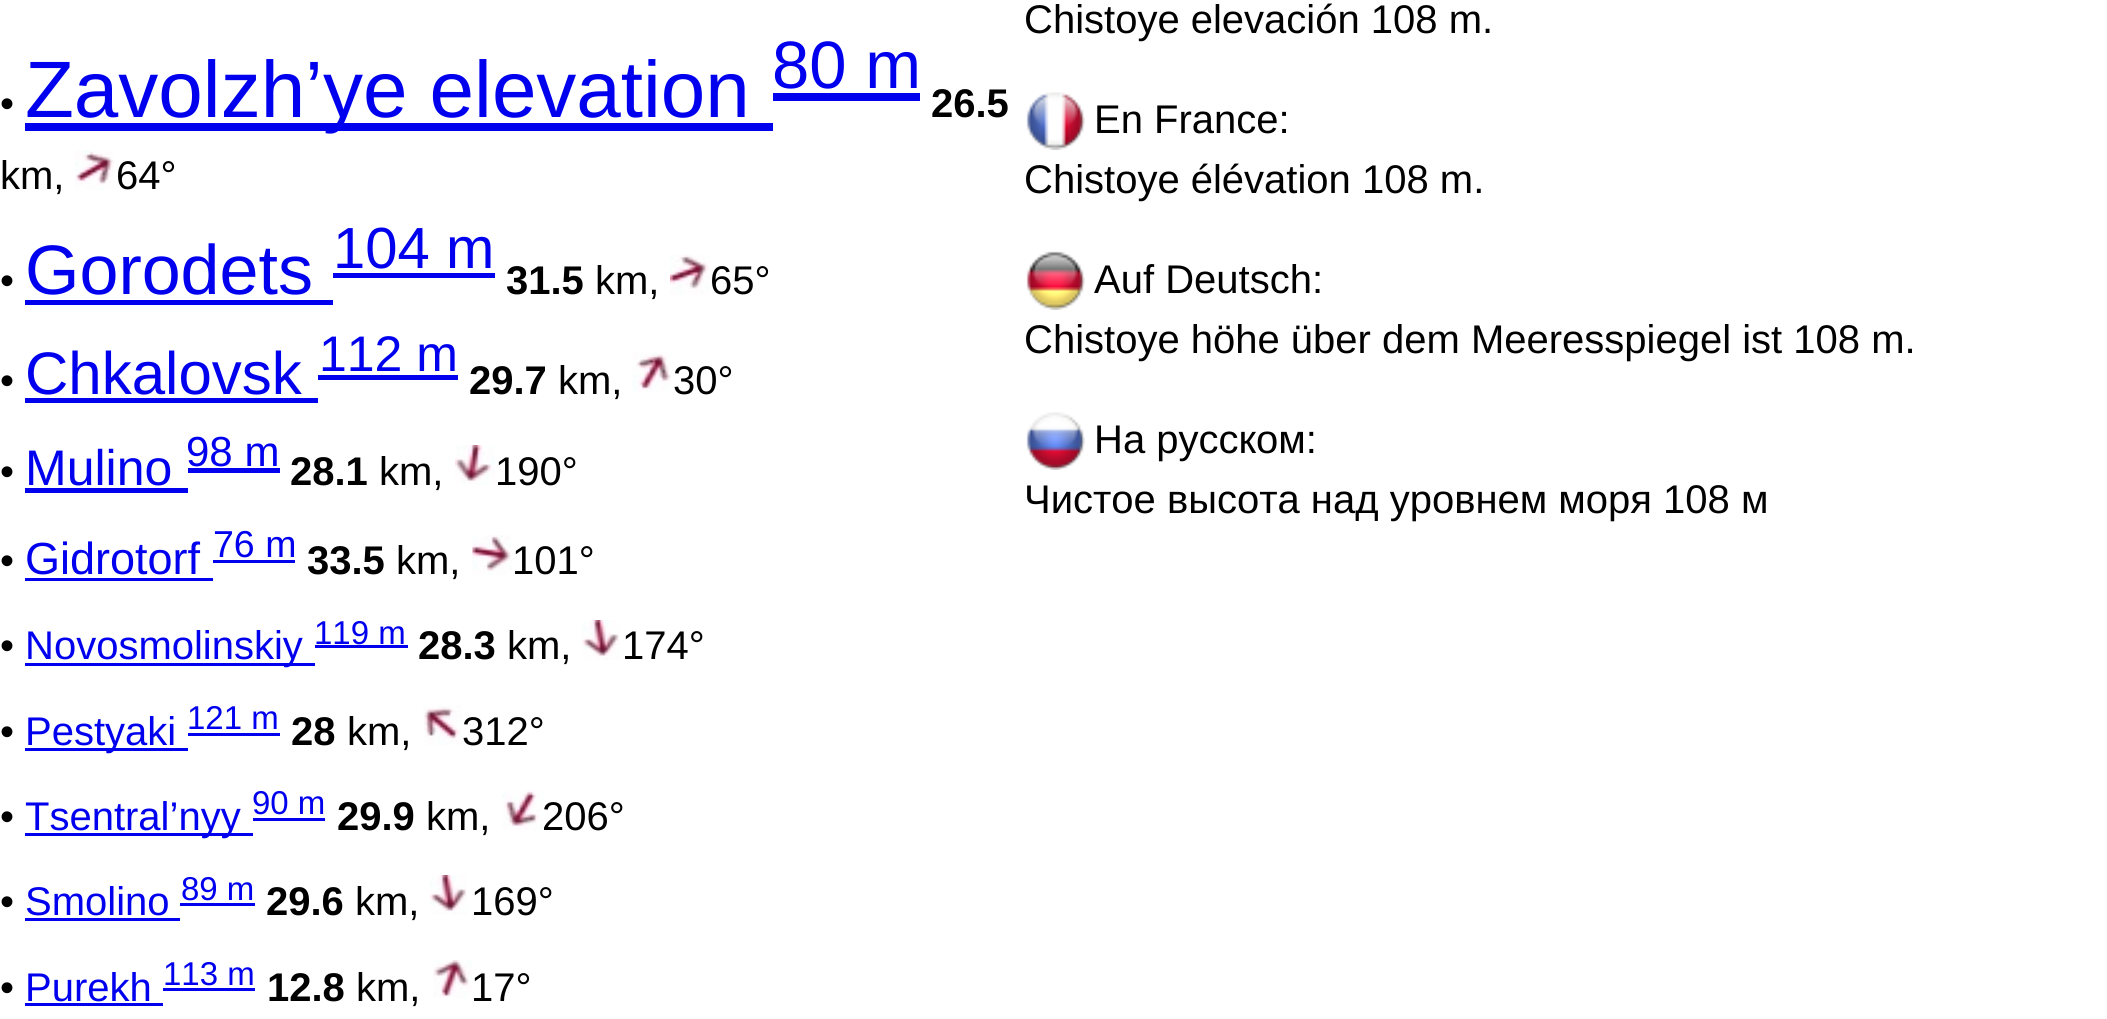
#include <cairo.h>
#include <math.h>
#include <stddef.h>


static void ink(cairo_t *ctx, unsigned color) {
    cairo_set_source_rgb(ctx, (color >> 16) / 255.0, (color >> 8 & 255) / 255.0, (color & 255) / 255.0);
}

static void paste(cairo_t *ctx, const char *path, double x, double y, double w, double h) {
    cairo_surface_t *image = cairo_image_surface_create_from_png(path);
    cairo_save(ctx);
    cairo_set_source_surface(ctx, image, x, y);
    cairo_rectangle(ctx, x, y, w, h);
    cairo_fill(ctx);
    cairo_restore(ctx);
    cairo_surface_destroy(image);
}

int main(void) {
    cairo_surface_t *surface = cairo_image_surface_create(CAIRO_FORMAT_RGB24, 2107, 1019);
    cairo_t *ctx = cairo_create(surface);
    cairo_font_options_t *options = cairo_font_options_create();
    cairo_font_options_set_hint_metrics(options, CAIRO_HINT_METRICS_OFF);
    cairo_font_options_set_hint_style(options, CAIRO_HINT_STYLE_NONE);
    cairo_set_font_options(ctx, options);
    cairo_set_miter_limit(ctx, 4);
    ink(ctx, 0xFFFFFF);
    cairo_paint(ctx);
    cairo_select_font_face(ctx, "Liberation Sans", CAIRO_FONT_SLANT_NORMAL, CAIRO_FONT_WEIGHT_NORMAL);
    cairo_set_font_size(ctx, 40);
    ink(ctx, 0x000000);
    cairo_move_to(ctx, 0, 117);
    cairo_show_text(ctx, "•");
    ink(ctx, 0x0000EE);
    cairo_rectangle(ctx, 25, 123, 748, 8);
    cairo_fill(ctx);
    cairo_set_font_size(ctx, 80);
    cairo_move_to(ctx, 25, 117);
    cairo_show_text(ctx, "Zavolzh’ye elevation");
    cairo_rectangle(ctx, 773, 93, 147, 8);
    cairo_fill(ctx);
    cairo_set_font_size(ctx, 67);
    cairo_move_to(ctx, 772, 88);
    cairo_show_text(ctx, "80 m");
    cairo_select_font_face(ctx, "Liberation Sans", CAIRO_FONT_SLANT_NORMAL, CAIRO_FONT_WEIGHT_BOLD);
    cairo_set_font_size(ctx, 40);
    ink(ctx, 0x000000);
    cairo_move_to(ctx, 931, 117);
    cairo_show_text(ctx, "26.5");
    cairo_select_font_face(ctx, "Liberation Sans", CAIRO_FONT_SLANT_NORMAL, CAIRO_FONT_WEIGHT_NORMAL);
    cairo_move_to(ctx, 0, 189);
    cairo_show_text(ctx, "km,");
    paste(ctx, "media/1.png", 75, 150, 39, 40);
    cairo_move_to(ctx, 116, 189);
    cairo_show_text(ctx, "64°");
    cairo_move_to(ctx, 0, 294);
    cairo_show_text(ctx, "•");
    cairo_set_font_size(ctx, 70);
    ink(ctx, 0x0000EE);
    cairo_move_to(ctx, 25, 294);
    cairo_show_text(ctx, "Gorodets");
    cairo_rectangle(ctx, 25, 300, 308, 5);
    cairo_fill(ctx);
    cairo_rectangle(ctx, 333, 273, 162, 5);
    cairo_fill(ctx);
    cairo_set_font_size(ctx, 58);
    cairo_move_to(ctx, 333, 268);
    cairo_show_text(ctx, "104 m");
    cairo_select_font_face(ctx, "Liberation Sans", CAIRO_FONT_SLANT_NORMAL, CAIRO_FONT_WEIGHT_BOLD);
    cairo_set_font_size(ctx, 40);
    ink(ctx, 0x000000);
    cairo_move_to(ctx, 506, 294);
    cairo_show_text(ctx, "31.5");
    cairo_select_font_face(ctx, "Liberation Sans", CAIRO_FONT_SLANT_NORMAL, CAIRO_FONT_WEIGHT_NORMAL);
    cairo_move_to(ctx, 595, 294);
    cairo_show_text(ctx, "km,");
    paste(ctx, "media/2.png", 670, 255, 40, 40);
    cairo_move_to(ctx, 710, 294);
    cairo_show_text(ctx, "65°");
    cairo_move_to(ctx, 0, 394);
    cairo_show_text(ctx, "•");
    cairo_set_font_size(ctx, 60);
    ink(ctx, 0x0000EE);
    cairo_move_to(ctx, 25, 394);
    cairo_show_text(ctx, "Chkalovsk");
    cairo_rectangle(ctx, 25, 398, 293, 5);
    cairo_fill(ctx);
    cairo_rectangle(ctx, 318, 375, 140, 5);
    cairo_fill(ctx);
    cairo_set_font_size(ctx, 50);
    cairo_move_to(ctx, 319, 371);
    cairo_show_text(ctx, "112 m");
    cairo_select_font_face(ctx, "Liberation Sans", CAIRO_FONT_SLANT_NORMAL, CAIRO_FONT_WEIGHT_BOLD);
    cairo_set_font_size(ctx, 40);
    ink(ctx, 0x000000);
    cairo_move_to(ctx, 469, 394);
    cairo_show_text(ctx, "29.7");
    cairo_select_font_face(ctx, "Liberation Sans", CAIRO_FONT_SLANT_NORMAL, CAIRO_FONT_WEIGHT_NORMAL);
    cairo_move_to(ctx, 558, 394);
    cairo_show_text(ctx, "km,");
    paste(ctx, "media/3.png", 632, 352, 40, 40);
    cairo_move_to(ctx, 673, 394);
    cairo_show_text(ctx, "30°");
    cairo_move_to(ctx, 0, 485);
    cairo_show_text(ctx, "•");
    cairo_set_font_size(ctx, 50);
    ink(ctx, 0x0000EE);
    cairo_move_to(ctx, 25, 485);
    cairo_show_text(ctx, "Mulino");
    cairo_rectangle(ctx, 25, 488, 163, 5);
    cairo_fill(ctx);
    cairo_rectangle(ctx, 188, 468, 92, 5);
    cairo_fill(ctx);
    cairo_set_font_size(ctx, 42);
    cairo_move_to(ctx, 186, 466);
    cairo_show_text(ctx, "98 m");
    cairo_select_font_face(ctx, "Liberation Sans", CAIRO_FONT_SLANT_NORMAL, CAIRO_FONT_WEIGHT_BOLD);
    cairo_set_font_size(ctx, 40);
    ink(ctx, 0x000000);
    cairo_move_to(ctx, 290, 485);
    cairo_show_text(ctx, "28.1");
    cairo_select_font_face(ctx, "Liberation Sans", CAIRO_FONT_SLANT_NORMAL, CAIRO_FONT_WEIGHT_NORMAL);
    cairo_move_to(ctx, 379, 485);
    cairo_show_text(ctx, "km,");
    paste(ctx, "media/4.png", 455, 445, 40, 40);
    cairo_move_to(ctx, 495, 485);
    cairo_show_text(ctx, "190°");
    cairo_move_to(ctx, 0, 574);
    cairo_show_text(ctx, "•");
    cairo_set_font_size(ctx, 45);
    ink(ctx, 0x0000EE);
    cairo_move_to(ctx, 25, 574);
    cairo_show_text(ctx, "Gidrotorf");
    cairo_rectangle(ctx, 25, 578, 188, 3);
    cairo_fill(ctx);
    cairo_rectangle(ctx, 213, 560, 82, 3);
    cairo_fill(ctx);
    cairo_set_font_size(ctx, 37.5);
    cairo_move_to(ctx, 213, 557);
    cairo_show_text(ctx, "76 m");
    cairo_select_font_face(ctx, "Liberation Sans", CAIRO_FONT_SLANT_NORMAL, CAIRO_FONT_WEIGHT_BOLD);
    cairo_set_font_size(ctx, 40);
    ink(ctx, 0x000000);
    cairo_move_to(ctx, 307, 574);
    cairo_show_text(ctx, "33.5");
    cairo_select_font_face(ctx, "Liberation Sans", CAIRO_FONT_SLANT_NORMAL, CAIRO_FONT_WEIGHT_NORMAL);
    cairo_move_to(ctx, 396, 574);
    cairo_show_text(ctx, "km,");
    paste(ctx, "media/5.png", 472, 535, 40, 40);
    cairo_move_to(ctx, 512, 574);
    cairo_show_text(ctx, "101°");
    cairo_move_to(ctx, 0, 659);
    cairo_show_text(ctx, "•");
    ink(ctx, 0x0000EE);
    cairo_rectangle(ctx, 25, 663, 290, 3);
    cairo_fill(ctx);
    cairo_move_to(ctx, 25, 659);
    cairo_show_text(ctx, "Novosmolinskiy");
    cairo_rectangle(ctx, 315, 645, 93, 3);
    cairo_fill(ctx);
    cairo_set_font_size(ctx, 33);
    cairo_move_to(ctx, 314, 644);
    cairo_show_text(ctx, "119 m");
    cairo_select_font_face(ctx, "Liberation Sans", CAIRO_FONT_SLANT_NORMAL, CAIRO_FONT_WEIGHT_BOLD);
    cairo_set_font_size(ctx, 40);
    ink(ctx, 0x000000);
    cairo_move_to(ctx, 418, 659);
    cairo_show_text(ctx, "28.3");
    cairo_select_font_face(ctx, "Liberation Sans", CAIRO_FONT_SLANT_NORMAL, CAIRO_FONT_WEIGHT_NORMAL);
    cairo_move_to(ctx, 507, 659);
    cairo_show_text(ctx, "km,");
    paste(ctx, "media/6.png", 582, 620, 38, 40);
    cairo_move_to(ctx, 622, 659);
    cairo_show_text(ctx, "174°");
    cairo_move_to(ctx, 0, 745);
    cairo_show_text(ctx, "•");
    ink(ctx, 0x0000EE);
    cairo_rectangle(ctx, 25, 748, 163, 3);
    cairo_fill(ctx);
    cairo_move_to(ctx, 25, 745);
    cairo_show_text(ctx, "Pestyaki");
    cairo_rectangle(ctx, 188, 733, 92, 3);
    cairo_fill(ctx);
    cairo_set_font_size(ctx, 33);
    cairo_move_to(ctx, 187, 729);
    cairo_show_text(ctx, "121 m");
    cairo_select_font_face(ctx, "Liberation Sans", CAIRO_FONT_SLANT_NORMAL, CAIRO_FONT_WEIGHT_BOLD);
    cairo_set_font_size(ctx, 40);
    ink(ctx, 0x000000);
    cairo_move_to(ctx, 291, 745);
    cairo_show_text(ctx, "28");
    cairo_select_font_face(ctx, "Liberation Sans", CAIRO_FONT_SLANT_NORMAL, CAIRO_FONT_WEIGHT_NORMAL);
    cairo_move_to(ctx, 347, 745);
    cairo_show_text(ctx, "km,");
    paste(ctx, "media/7.png", 423, 705, 39, 40);
    cairo_move_to(ctx, 462, 745);
    cairo_show_text(ctx, "312°");
    cairo_move_to(ctx, 0, 830);
    cairo_show_text(ctx, "•");
    ink(ctx, 0x0000EE);
    cairo_rectangle(ctx, 25, 833, 228, 3);
    cairo_fill(ctx);
    cairo_move_to(ctx, 25, 830);
    cairo_show_text(ctx, "Tsentral’nyy");
    cairo_rectangle(ctx, 253, 818, 72, 3);
    cairo_fill(ctx);
    cairo_set_font_size(ctx, 33);
    cairo_move_to(ctx, 252, 814);
    cairo_show_text(ctx, "90 m");
    cairo_select_font_face(ctx, "Liberation Sans", CAIRO_FONT_SLANT_NORMAL, CAIRO_FONT_WEIGHT_BOLD);
    cairo_set_font_size(ctx, 40);
    ink(ctx, 0x000000);
    cairo_move_to(ctx, 337, 830);
    cairo_show_text(ctx, "29.9");
    cairo_select_font_face(ctx, "Liberation Sans", CAIRO_FONT_SLANT_NORMAL, CAIRO_FONT_WEIGHT_NORMAL);
    cairo_move_to(ctx, 426, 830);
    cairo_show_text(ctx, "km,");
    paste(ctx, "media/8.png", 502, 790, 41, 40);
    cairo_move_to(ctx, 542, 830);
    cairo_show_text(ctx, "206°");
    cairo_move_to(ctx, 0, 915);
    cairo_show_text(ctx, "•");
    ink(ctx, 0x0000EE);
    cairo_move_to(ctx, 25, 915);
    cairo_show_text(ctx, "Smolino");
    cairo_rectangle(ctx, 25, 918, 155, 3);
    cairo_fill(ctx);
    cairo_rectangle(ctx, 180, 903, 75, 3);
    cairo_fill(ctx);
    cairo_set_font_size(ctx, 33);
    cairo_move_to(ctx, 181, 900);
    cairo_show_text(ctx, "89 m");
    cairo_select_font_face(ctx, "Liberation Sans", CAIRO_FONT_SLANT_NORMAL, CAIRO_FONT_WEIGHT_BOLD);
    cairo_set_font_size(ctx, 40);
    ink(ctx, 0x000000);
    cairo_move_to(ctx, 266, 915);
    cairo_show_text(ctx, "29.6");
    cairo_select_font_face(ctx, "Liberation Sans", CAIRO_FONT_SLANT_NORMAL, CAIRO_FONT_WEIGHT_NORMAL);
    cairo_move_to(ctx, 355, 915);
    cairo_show_text(ctx, "km,");
    paste(ctx, "media/9.png", 430, 875, 37, 40);
    cairo_move_to(ctx, 471, 915);
    cairo_show_text(ctx, "169°");
    cairo_move_to(ctx, 0, 1001);
    cairo_show_text(ctx, "•");
    ink(ctx, 0x0000EE);
    cairo_move_to(ctx, 25, 1001);
    cairo_show_text(ctx, "Purekh");
    cairo_rectangle(ctx, 25, 1003, 138, 3);
    cairo_fill(ctx);
    cairo_rectangle(ctx, 163, 988, 92, 3);
    cairo_fill(ctx);
    cairo_set_font_size(ctx, 33);
    cairo_move_to(ctx, 163, 985);
    cairo_show_text(ctx, "113 m");
    cairo_select_font_face(ctx, "Liberation Sans", CAIRO_FONT_SLANT_NORMAL, CAIRO_FONT_WEIGHT_BOLD);
    cairo_set_font_size(ctx, 40);
    ink(ctx, 0x000000);
    cairo_move_to(ctx, 267, 1001);
    cairo_show_text(ctx, "12.8");
    cairo_select_font_face(ctx, "Liberation Sans", CAIRO_FONT_SLANT_NORMAL, CAIRO_FONT_WEIGHT_NORMAL);
    cairo_move_to(ctx, 356, 1001);
    cairo_show_text(ctx, "km,");
    paste(ctx, "media/10.png", 433, 960, 39, 38);
    cairo_move_to(ctx, 471, 1001);
    cairo_show_text(ctx, "17°");
    cairo_move_to(ctx, 1024, 33);
    cairo_show_text(ctx, "Chistoye elevación 108 m.");
    paste(ctx, "media/11.png", 1026, 92, 59, 58);
    cairo_move_to(ctx, 1094, 133);
    cairo_show_text(ctx, "En France:");
    cairo_move_to(ctx, 1024, 193);
    cairo_show_text(ctx, "Chistoye élévation 108 m.");
    paste(ctx, "media/12.png", 1026, 251, 59, 59);
    cairo_move_to(ctx, 1094, 293);
    cairo_show_text(ctx, "Auf Deutsch:");
    cairo_move_to(ctx, 1024, 353);
    cairo_show_text(ctx, "Chistoye höhe über dem Meeresspiegel ist 108 m.");
    paste(ctx, "media/13.png", 1026, 412, 59, 58);
    cairo_move_to(ctx, 1094, 453);
    cairo_show_text(ctx, "На русском:");
    cairo_move_to(ctx, 1024, 513);
    cairo_show_text(ctx, "Чистое высота над уровнем моря 108 м");
    cairo_surface_write_to_png(surface, "image.png");
    cairo_font_options_destroy(options);
    cairo_destroy(ctx);
    cairo_surface_destroy(surface);
    return 0;
}
